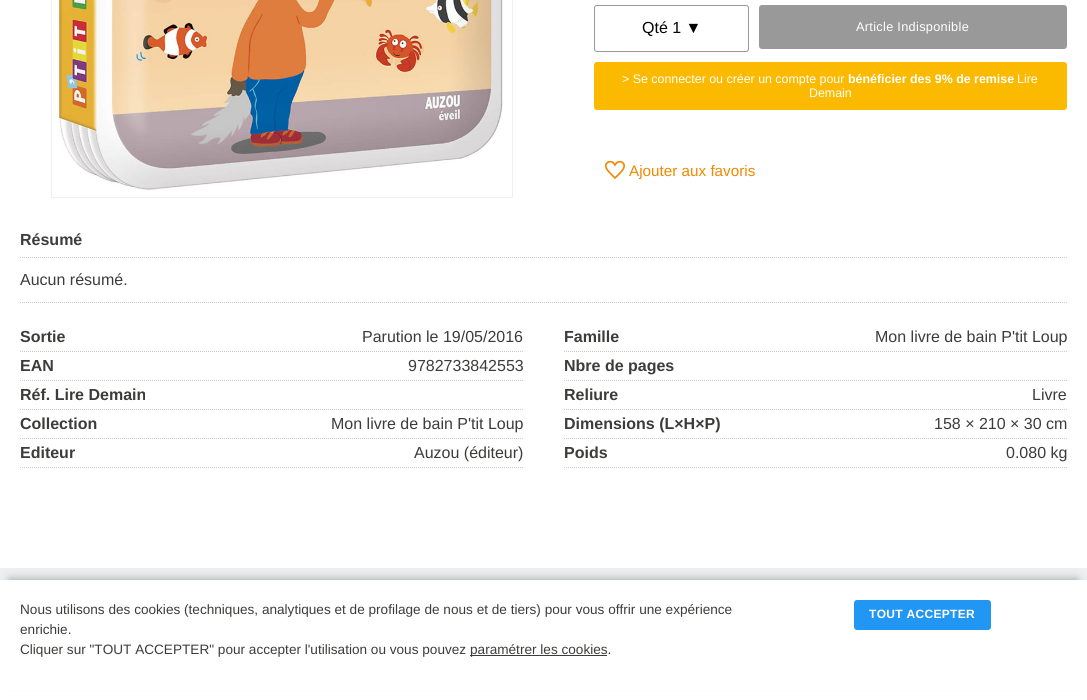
#include <cairo.h>
#include <math.h>
#include <stddef.h>

typedef struct { double x, y; const char *s; } line_t;

static void ink(cairo_t *ctx, unsigned color) {
    cairo_set_source_rgb(ctx, (color >> 16) / 255.0, (color >> 8 & 255) / 255.0, (color & 255) / 255.0);
}

static void write_spaced(cairo_t *ctx, double x, double y, const char *s, double letter, double word) {
    cairo_move_to(ctx, x, y);
    while (*s) {
        char ch[5] = {0};
        int n = 0;
        do ch[n++] = *s++; while ((*s & 0xC0) == 0x80);
        cairo_show_text(ctx, ch);
        cairo_rel_move_to(ctx, letter + word * (*ch == ' '), 0);
    }
}

static void round_path(cairo_t *ctx, double x, double y, double w, double h, double r) {
    cairo_new_sub_path(ctx);
    cairo_arc(ctx, x + w - r, y + h - r, r, 0, M_PI / 2);
    cairo_arc(ctx, x + r, y + h - r, r, M_PI / 2, M_PI);
    cairo_arc(ctx, x + r, y + r, r, M_PI, 1.5 * M_PI);
    cairo_arc(ctx, x + w - r, y + r, r, 1.5 * M_PI, 2 * M_PI);
    cairo_close_path(ctx);
}

static void blur_box(cairo_t *ctx, double x, double y, double w, double h, double r, double blur, double alpha) {
    cairo_push_group_with_content(ctx, CAIRO_CONTENT_ALPHA);
    cairo_set_operator(ctx, CAIRO_OPERATOR_SOURCE);
    for (int i = 15; i >= -15 && fmin(w, h) + blur * i / 3 > 0; i -= 2) {
        double e = blur * i / 6;
        cairo_set_source_rgba(ctx, 0, 0, 0, alpha * erfc((i - 1) / 8.5) / 2);
        round_path(ctx, x - e, y - e, w + 2 * e, h + 2 * e, fmax(0, fmin(r + e + blur * .6, fmin(w, h) / 2 + e)));
        cairo_fill(ctx);
    }
    cairo_pattern_t *soft = cairo_pop_group(ctx);
    cairo_mask(ctx, soft);
    cairo_pattern_destroy(soft);
}

static void paste(cairo_t *ctx, const char *path, double x, double y, double w, double h) {
    cairo_surface_t *image = cairo_image_surface_create_from_png(path);
    cairo_save(ctx);
    cairo_set_source_surface(ctx, image, x, y);
    cairo_rectangle(ctx, x, y, w, h);
    cairo_fill(ctx);
    cairo_restore(ctx);
    cairo_surface_destroy(image);
}

int main(void) {
    cairo_surface_t *surface = cairo_image_surface_create(CAIRO_FORMAT_RGB24, 1087, 700);
    cairo_t *ctx = cairo_create(surface);
    cairo_font_options_t *options = cairo_font_options_create();
    cairo_font_options_set_hint_metrics(options, CAIRO_HINT_METRICS_OFF);
    cairo_font_options_set_hint_style(options, CAIRO_HINT_STYLE_NONE);
    cairo_set_font_options(ctx, options);
    cairo_set_miter_limit(ctx, 4);
    ink(ctx, 0xFFFFFF);
    cairo_paint(ctx);
    cairo_rectangle(ctx, 51.5, -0.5, 461, 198);
    ink(ctx, 0xEFEFEF);
    cairo_set_line_width(ctx, 1);
    cairo_stroke(ctx);
    paste(ctx, "media/1.png", 56, 0, 447, 190);
    round_path(ctx, 594.5, 5.5, 154, 46, 2.5);
    ink(ctx, 0x999999);
    cairo_stroke(ctx);
    cairo_select_font_face(ctx, "Liberation Sans", CAIRO_FONT_SLANT_NORMAL, CAIRO_FONT_WEIGHT_NORMAL);
    cairo_set_font_size(ctx, 16);
    ink(ctx, 0x000000);
    cairo_move_to(ctx, 642, 33);
    cairo_show_text(ctx, "Qté 1 ▼");
    ink(ctx, 0x999999);
    round_path(ctx, 759, 5, 308, 44, 3);
    cairo_fill(ctx);
    cairo_set_font_size(ctx, 12.75);
    ink(ctx, 0xFFFFFF);
    write_spaced(ctx, 856, 31, "Article Indisponible", 0.3, 0);
    ink(ctx, 0xFBB900);
    round_path(ctx, 594, 62, 473, 48, 3);
    cairo_fill(ctx);
    cairo_set_font_size(ctx, 12.4);
    ink(ctx, 0xFFFFFF);
    cairo_move_to(ctx, 622, 83);
    cairo_show_text(ctx, "> Se connecter ou créer un compte pour");
    cairo_select_font_face(ctx, "Liberation Sans", CAIRO_FONT_SLANT_NORMAL, CAIRO_FONT_WEIGHT_BOLD);
    cairo_move_to(ctx, 848, 83);
    cairo_show_text(ctx, "bénéficier des 9% de remise");
    cairo_select_font_face(ctx, "Liberation Sans", CAIRO_FONT_SLANT_NORMAL, CAIRO_FONT_WEIGHT_NORMAL);
    cairo_move_to(ctx, 1017, 83);
    cairo_show_text(ctx, "Lire");
    cairo_move_to(ctx, 809, 97);
    cairo_show_text(ctx, "Demain");
    paste(ctx, "media/2.png", 605, 160, 20, 19);
    cairo_set_font_size(ctx, 15.25);
    ink(ctx, 0xF18800);
    cairo_move_to(ctx, 629, 176);
    cairo_show_text(ctx, "Ajouter aux favoris");
    cairo_new_path(ctx);
    cairo_move_to(ctx, 20, 302.5);
    cairo_line_to(ctx, 1067, 302.5);
    ink(ctx, 0xCCCCCC);
    cairo_set_dash(ctx, (double[]){1, 1}, 2, 0);
    cairo_stroke(ctx);
    cairo_new_path(ctx);
    cairo_move_to(ctx, 20, 257.5);
    cairo_line_to(ctx, 1067, 257.5);
    cairo_stroke(ctx);
    cairo_select_font_face(ctx, "Liberation Sans", CAIRO_FONT_SLANT_NORMAL, CAIRO_FONT_WEIGHT_BOLD);
    cairo_set_font_size(ctx, 16);
    ink(ctx, 0x3C3C3B);
    cairo_move_to(ctx, 20, 245);
    cairo_show_text(ctx, "Résumé");
    cairo_select_font_face(ctx, "Liberation Sans", CAIRO_FONT_SLANT_NORMAL, CAIRO_FONT_WEIGHT_NORMAL);
    cairo_move_to(ctx, 20, 285);
    cairo_show_text(ctx, "Aucun résumé.");
    cairo_new_path(ctx);
    cairo_move_to(ctx, 20, 351.5);
    cairo_line_to(ctx, 524, 351.5);
    ink(ctx, 0xCCCCCC);
    cairo_stroke(ctx);
    cairo_select_font_face(ctx, "Liberation Sans", CAIRO_FONT_SLANT_NORMAL, CAIRO_FONT_WEIGHT_BOLD);
    ink(ctx, 0x3C3C3B);
    cairo_move_to(ctx, 20, 342);
    cairo_show_text(ctx, "Sortie");
    cairo_select_font_face(ctx, "Liberation Sans", CAIRO_FONT_SLANT_NORMAL, CAIRO_FONT_WEIGHT_NORMAL);
    cairo_move_to(ctx, 362, 342);
    cairo_show_text(ctx, "Parution le 19/05/2016");
    cairo_new_path(ctx);
    cairo_move_to(ctx, 20, 380.5);
    cairo_line_to(ctx, 524, 380.5);
    ink(ctx, 0xCCCCCC);
    cairo_stroke(ctx);
    cairo_select_font_face(ctx, "Liberation Sans", CAIRO_FONT_SLANT_NORMAL, CAIRO_FONT_WEIGHT_BOLD);
    ink(ctx, 0x3C3C3B);
    cairo_move_to(ctx, 20, 371);
    cairo_show_text(ctx, "EAN");
    cairo_select_font_face(ctx, "Liberation Sans", CAIRO_FONT_SLANT_NORMAL, CAIRO_FONT_WEIGHT_NORMAL);
    cairo_move_to(ctx, 408, 371);
    cairo_show_text(ctx, "9782733842553");
    cairo_new_path(ctx);
    cairo_move_to(ctx, 20, 409.5);
    cairo_line_to(ctx, 524, 409.5);
    ink(ctx, 0xCCCCCC);
    cairo_stroke(ctx);
    cairo_select_font_face(ctx, "Liberation Sans", CAIRO_FONT_SLANT_NORMAL, CAIRO_FONT_WEIGHT_BOLD);
    ink(ctx, 0x3C3C3B);
    cairo_move_to(ctx, 20, 400);
    cairo_show_text(ctx, "Réf. Lire Demain");
    cairo_new_path(ctx);
    cairo_move_to(ctx, 20, 438.5);
    cairo_line_to(ctx, 524, 438.5);
    ink(ctx, 0xCCCCCC);
    cairo_stroke(ctx);
    ink(ctx, 0x3C3C3B);
    cairo_move_to(ctx, 20, 429);
    cairo_show_text(ctx, "Collection");
    cairo_select_font_face(ctx, "Liberation Sans", CAIRO_FONT_SLANT_NORMAL, CAIRO_FONT_WEIGHT_NORMAL);
    cairo_move_to(ctx, 331, 429);
    cairo_show_text(ctx, "Mon livre de bain P'tit Loup");
    cairo_new_path(ctx);
    cairo_move_to(ctx, 20, 467.5);
    cairo_line_to(ctx, 524, 467.5);
    ink(ctx, 0xCCCCCC);
    cairo_stroke(ctx);
    cairo_select_font_face(ctx, "Liberation Sans", CAIRO_FONT_SLANT_NORMAL, CAIRO_FONT_WEIGHT_BOLD);
    ink(ctx, 0x3C3C3B);
    cairo_move_to(ctx, 20, 458);
    cairo_show_text(ctx, "Editeur");
    cairo_select_font_face(ctx, "Liberation Sans", CAIRO_FONT_SLANT_NORMAL, CAIRO_FONT_WEIGHT_NORMAL);
    cairo_move_to(ctx, 414, 458);
    cairo_show_text(ctx, "Auzou (éditeur)");
    cairo_new_path(ctx);
    cairo_move_to(ctx, 564, 351.5);
    cairo_line_to(ctx, 1067, 351.5);
    ink(ctx, 0xCCCCCC);
    cairo_stroke(ctx);
    cairo_select_font_face(ctx, "Liberation Sans", CAIRO_FONT_SLANT_NORMAL, CAIRO_FONT_WEIGHT_BOLD);
    ink(ctx, 0x3C3C3B);
    cairo_move_to(ctx, 564, 342);
    cairo_show_text(ctx, "Famille");
    cairo_select_font_face(ctx, "Liberation Sans", CAIRO_FONT_SLANT_NORMAL, CAIRO_FONT_WEIGHT_NORMAL);
    cairo_move_to(ctx, 875, 342);
    cairo_show_text(ctx, "Mon livre de bain P'tit Loup");
    cairo_new_path(ctx);
    cairo_move_to(ctx, 564, 380.5);
    cairo_line_to(ctx, 1067, 380.5);
    ink(ctx, 0xCCCCCC);
    cairo_stroke(ctx);
    cairo_select_font_face(ctx, "Liberation Sans", CAIRO_FONT_SLANT_NORMAL, CAIRO_FONT_WEIGHT_BOLD);
    ink(ctx, 0x3C3C3B);
    cairo_move_to(ctx, 564, 371);
    cairo_show_text(ctx, "Nbre de pages");
    cairo_new_path(ctx);
    cairo_move_to(ctx, 564, 409.5);
    cairo_line_to(ctx, 1067, 409.5);
    ink(ctx, 0xCCCCCC);
    cairo_stroke(ctx);
    ink(ctx, 0x3C3C3B);
    cairo_move_to(ctx, 564, 400);
    cairo_show_text(ctx, "Reliure");
    cairo_select_font_face(ctx, "Liberation Sans", CAIRO_FONT_SLANT_NORMAL, CAIRO_FONT_WEIGHT_NORMAL);
    cairo_move_to(ctx, 1032, 400);
    cairo_show_text(ctx, "Livre");
    cairo_new_path(ctx);
    cairo_move_to(ctx, 564, 438.5);
    cairo_line_to(ctx, 1067, 438.5);
    ink(ctx, 0xCCCCCC);
    cairo_stroke(ctx);
    cairo_select_font_face(ctx, "Liberation Sans", CAIRO_FONT_SLANT_NORMAL, CAIRO_FONT_WEIGHT_BOLD);
    ink(ctx, 0x3C3C3B);
    cairo_move_to(ctx, 564, 429);
    cairo_show_text(ctx, "Dimensions (L×H×P)");
    cairo_select_font_face(ctx, "Liberation Sans", CAIRO_FONT_SLANT_NORMAL, CAIRO_FONT_WEIGHT_NORMAL);
    cairo_move_to(ctx, 934, 429);
    cairo_show_text(ctx, "158 × 210 × 30 cm");
    cairo_new_path(ctx);
    cairo_move_to(ctx, 564, 467.5);
    cairo_line_to(ctx, 1067, 467.5);
    ink(ctx, 0xCCCCCC);
    cairo_stroke(ctx);
    cairo_select_font_face(ctx, "Liberation Sans", CAIRO_FONT_SLANT_NORMAL, CAIRO_FONT_WEIGHT_BOLD);
    ink(ctx, 0x3C3C3B);
    cairo_move_to(ctx, 564, 458);
    cairo_show_text(ctx, "Poids");
    cairo_select_font_face(ctx, "Liberation Sans", CAIRO_FONT_SLANT_NORMAL, CAIRO_FONT_WEIGHT_NORMAL);
    cairo_move_to(ctx, 1006, 458);
    cairo_show_text(ctx, "0.080 kg");
    ink(ctx, 0xEDF0F1);
    cairo_rectangle(ctx, 0, 568, 1087, 12);
    cairo_fill(ctx);
    ink(ctx, 0x999999);
    blur_box(ctx, 10, 580, 1067, 100, 0, 5, 1);
    ink(ctx, 0xFFFFFF);
    cairo_rectangle(ctx, 0, 580, 1087, 110);
    cairo_fill(ctx);
    cairo_set_font_size(ctx, 13.6);
    ink(ctx, 0x3C3C3B);
    {
        static const line_t items[] = {
            {20, 614, "Nous utilisons des cookies (techniques, analytiques et de profilage de nous et de tiers) pour vous offrir une expérience"},
            {20, 634, "enrichie."},
            {20, 654, "Cliquer sur \"TOUT ACCEPTER\" pour accepter l'utilisation ou vous pouvez"},
        };
        for (size_t i = 0; i < sizeof items / sizeof *items; i++) {
            cairo_move_to(ctx, items[i].x, items[i].y);
            cairo_show_text(ctx, items[i].s);
        }
    }
    cairo_rectangle(ctx, 470, 655, 137, 1);
    cairo_fill(ctx);
    cairo_move_to(ctx, 470, 654);
    cairo_show_text(ctx, "paramétrer les cookies.");
    ink(ctx, 0x2196F3);
    round_path(ctx, 854, 600, 137, 30, 3);
    cairo_fill(ctx);
    cairo_select_font_face(ctx, "Liberation Sans", CAIRO_FONT_SLANT_NORMAL, CAIRO_FONT_WEIGHT_BOLD);
    cairo_set_font_size(ctx, 12);
    ink(ctx, 0xFFFFFF);
    write_spaced(ctx, 869, 618, "TOUT ACCEPTER", 0.3, 0);
    cairo_surface_write_to_png(surface, "image.png");
    cairo_font_options_destroy(options);
    cairo_destroy(ctx);
    cairo_surface_destroy(surface);
    return 0;
}
